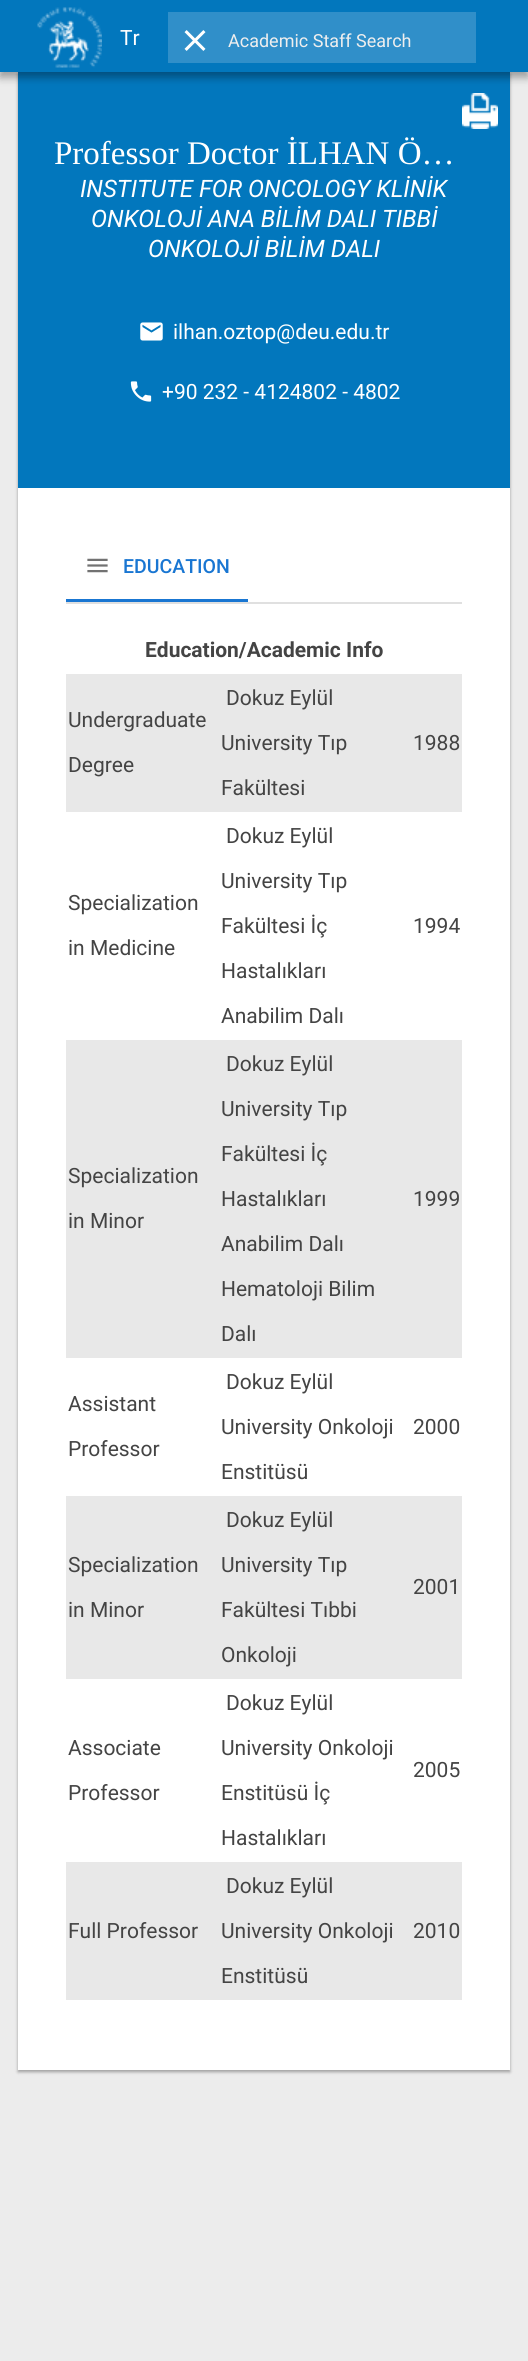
#include <cairo.h>
#include <math.h>
#include <stddef.h>

typedef struct { double x, y; const char *s; } line_t;

static void ink(cairo_t *ctx, unsigned color) {
    cairo_set_source_rgb(ctx, (color >> 16) / 255.0, (color >> 8 & 255) / 255.0, (color & 255) / 255.0);
}

static void round_path(cairo_t *ctx, double x, double y, double w, double h, double r) {
    cairo_new_sub_path(ctx);
    cairo_arc(ctx, x + w - r, y + h - r, r, 0, M_PI / 2);
    cairo_arc(ctx, x + r, y + h - r, r, M_PI / 2, M_PI);
    cairo_arc(ctx, x + r, y + r, r, M_PI, 1.5 * M_PI);
    cairo_arc(ctx, x + w - r, y + r, r, 1.5 * M_PI, 2 * M_PI);
    cairo_close_path(ctx);
}

static void blur_box(cairo_t *ctx, double x, double y, double w, double h, double r, double blur, double alpha) {
    cairo_push_group_with_content(ctx, CAIRO_CONTENT_ALPHA);
    cairo_set_operator(ctx, CAIRO_OPERATOR_SOURCE);
    for (int i = 15; i >= -15 && fmin(w, h) + blur * i / 3 > 0; i -= 2) {
        double e = blur * i / 6;
        cairo_set_source_rgba(ctx, 0, 0, 0, alpha * erfc((i - 1) / 8.5) / 2);
        round_path(ctx, x - e, y - e, w + 2 * e, h + 2 * e, fmax(0, fmin(r + e + blur * .6, fmin(w, h) / 2 + e)));
        cairo_fill(ctx);
    }
    cairo_pattern_t *soft = cairo_pop_group(ctx);
    cairo_mask(ctx, soft);
    cairo_pattern_destroy(soft);
}

static void paste(cairo_t *ctx, const char *path, double x, double y, double w, double h) {
    cairo_surface_t *image = cairo_image_surface_create_from_png(path);
    cairo_save(ctx);
    cairo_set_source_surface(ctx, image, x, y);
    cairo_rectangle(ctx, x, y, w, h);
    cairo_fill(ctx);
    cairo_restore(ctx);
    cairo_surface_destroy(image);
}

int main(void) {
    cairo_surface_t *surface = cairo_image_surface_create(CAIRO_FORMAT_RGB24, 528, 2361);
    cairo_t *ctx = cairo_create(surface);
    cairo_font_options_t *options = cairo_font_options_create();
    cairo_font_options_set_hint_metrics(options, CAIRO_HINT_METRICS_OFF);
    cairo_font_options_set_hint_style(options, CAIRO_HINT_STYLE_NONE);
    cairo_set_font_options(ctx, options);
    cairo_set_miter_limit(ctx, 4);
    ink(ctx, 0xECECEC);
    cairo_paint(ctx);
    ink(ctx, 0x000000);
    blur_box(ctx, 18, 74, 492, 1998, 0, 1.5, 0.24);
    blur_box(ctx, 18, 74, 492, 1998, 0, 2, 0.12);
    ink(ctx, 0x0277BD);
    cairo_rectangle(ctx, 18, 72, 492, 416);
    cairo_fill(ctx);
    ink(ctx, 0x000000);
    blur_box(ctx, 0, 5, 528, 72, 0, 4.5, 0.23);
    blur_box(ctx, 0, 5, 528, 72, 0, 4.5, 0.16);
    ink(ctx, 0x0277BD);
    cairo_rectangle(ctx, 0, 0, 528, 72);
    cairo_fill(ctx);
    paste(ctx, "media/1.png", 37, 7, 65, 61);
    cairo_select_font_face(ctx, "Roboto", CAIRO_FONT_SLANT_NORMAL, CAIRO_FONT_WEIGHT_NORMAL);
    cairo_set_font_size(ctx, 21);
    ink(ctx, 0xFFFFFF);
    cairo_move_to(ctx, 120, 45);
    cairo_show_text(ctx, "Tr");
    ink(ctx, 0x308FC9);
    cairo_rectangle(ctx, 168, 12, 308, 51);
    cairo_fill(ctx);
    paste(ctx, "media/2.png", 184, 30, 22, 21);
    cairo_set_font_size(ctx, 18);
    ink(ctx, 0xEEEEEE);
    cairo_move_to(ctx, 228, 47);
    cairo_show_text(ctx, "Academic Staff Search");
    ink(ctx, 0xFFFFFF);
    cairo_rectangle(ctx, 18, 488, 492, 1582);
    cairo_fill(ctx);
    paste(ctx, "media/3.png", 462, 93, 36, 36);
    cairo_select_font_face(ctx, "Liberation Serif", CAIRO_FONT_SLANT_NORMAL, CAIRO_FONT_WEIGHT_NORMAL);
    cairo_set_font_size(ctx, 33);
    cairo_move_to(ctx, 54, 164);
    cairo_show_text(ctx, "Professor Doctor İLHAN Ö…");
    cairo_select_font_face(ctx, "Roboto", CAIRO_FONT_SLANT_ITALIC, CAIRO_FONT_WEIGHT_NORMAL);
    cairo_set_font_size(ctx, 24);
    {
        static const line_t items[] = {
            {80, 197, "INSTITUTE FOR ONCOLOGY KLİNİK"},
            {91, 227, "ONKOLOJİ ANA BİLİM DALI TIBBİ"},
            {148, 257, "ONKOLOJİ BİLİM DALI"},
        };
        for (size_t i = 0; i < sizeof items / sizeof *items; i++) {
            cairo_move_to(ctx, items[i].x, items[i].y);
            cairo_show_text(ctx, items[i].s);
        }
    }
    paste(ctx, "media/4.png", 140, 322, 23, 19);
    cairo_select_font_face(ctx, "Roboto", CAIRO_FONT_SLANT_NORMAL, CAIRO_FONT_WEIGHT_NORMAL);
    cairo_set_font_size(ctx, 21);
    cairo_move_to(ctx, 173, 339);
    cairo_show_text(ctx, "ilhan.oztop@deu.edu.tr");
    paste(ctx, "media/5.png", 130, 381, 22, 21);
    cairo_move_to(ctx, 162, 399);
    cairo_show_text(ctx, "+90 232 - 4124802 - 4802");
    ink(ctx, 0xE0E0E0);
    cairo_rectangle(ctx, 66, 602, 396, 2);
    cairo_fill(ctx);
    ink(ctx, 0x1976D2);
    cairo_rectangle(ctx, 66, 599, 182, 3);
    cairo_fill(ctx);
    paste(ctx, "media/6.png", 87, 558, 21, 15);
    cairo_select_font_face(ctx, "Roboto Medium", CAIRO_FONT_SLANT_NORMAL, CAIRO_FONT_WEIGHT_NORMAL);
    cairo_set_font_size(ctx, 19.5);
    cairo_move_to(ctx, 123, 573);
    cairo_show_text(ctx, "EDUCATION");
    cairo_select_font_face(ctx, "Roboto", CAIRO_FONT_SLANT_NORMAL, CAIRO_FONT_WEIGHT_BOLD);
    cairo_set_font_size(ctx, 21);
    ink(ctx, 0x444444);
    cairo_move_to(ctx, 145, 657);
    cairo_show_text(ctx, "Education/Academic Info");
    ink(ctx, 0xE8E8E8);
    cairo_rectangle(ctx, 66, 674, 396, 138);
    cairo_fill(ctx);
    cairo_select_font_face(ctx, "Roboto", CAIRO_FONT_SLANT_NORMAL, CAIRO_FONT_WEIGHT_NORMAL);
    ink(ctx, 0x444444);
    {
        static const line_t items[] = {
            {68, 727, "Undergraduate"},
            {68, 772, "Degree"},
            {226, 705, "Dokuz Eylül"},
            {221, 750, "University Tıp"},
            {221, 795, "Fakültesi"},
            {413, 750, "1988"},
            {68, 910, "Specialization"},
            {68, 955, "in Medicine"},
            {226, 843, "Dokuz Eylül"},
            {221, 888, "University Tıp"},
            {221, 933, "Fakültesi İç"},
            {221, 978, "Hastalıkları"},
            {221, 1023, "Anabilim Dalı"},
            {413, 933, "1994"},
        };
        for (size_t i = 0; i < sizeof items / sizeof *items; i++) {
            cairo_move_to(ctx, items[i].x, items[i].y);
            cairo_show_text(ctx, items[i].s);
        }
    }
    ink(ctx, 0xE8E8E8);
    cairo_rectangle(ctx, 66, 1040, 396, 318);
    cairo_fill(ctx);
    ink(ctx, 0x444444);
    {
        static const line_t items[] = {
            {68, 1183, "Specialization"},
            {68, 1228, "in Minor"},
            {226, 1071, "Dokuz Eylül"},
            {221, 1116, "University Tıp"},
            {221, 1161, "Fakültesi İç"},
            {221, 1206, "Hastalıkları"},
            {221, 1251, "Anabilim Dalı"},
            {221, 1296, "Hematoloji Bilim"},
            {221, 1341, "Dalı"},
            {413, 1206, "1999"},
            {68, 1411, "Assistant"},
            {68, 1456, "Professor"},
            {226, 1389, "Dokuz Eylül"},
            {221, 1434, "University Onkoloji"},
            {221, 1479, "Enstitüsü"},
            {413, 1434, "2000"},
        };
        for (size_t i = 0; i < sizeof items / sizeof *items; i++) {
            cairo_move_to(ctx, items[i].x, items[i].y);
            cairo_show_text(ctx, items[i].s);
        }
    }
    ink(ctx, 0xE8E8E8);
    cairo_rectangle(ctx, 66, 1496, 396, 183);
    cairo_fill(ctx);
    ink(ctx, 0x444444);
    {
        static const line_t items[] = {
            {68, 1572, "Specialization"},
            {68, 1617, "in Minor"},
            {226, 1527, "Dokuz Eylül"},
            {221, 1572, "University Tıp"},
            {221, 1617, "Fakültesi Tıbbi"},
            {221, 1662, "Onkoloji"},
            {413, 1594, "2001"},
            {68, 1755, "Associate"},
            {68, 1800, "Professor"},
            {226, 1710, "Dokuz Eylül"},
            {221, 1755, "University Onkoloji"},
            {221, 1800, "Enstitüsü İç"},
            {221, 1845, "Hastalıkları"},
            {413, 1777, "2005"},
        };
        for (size_t i = 0; i < sizeof items / sizeof *items; i++) {
            cairo_move_to(ctx, items[i].x, items[i].y);
            cairo_show_text(ctx, items[i].s);
        }
    }
    ink(ctx, 0xE8E8E8);
    cairo_rectangle(ctx, 66, 1862, 396, 138);
    cairo_fill(ctx);
    ink(ctx, 0x444444);
    {
        static const line_t items[] = {
            {68, 1938, "Full Professor"},
            {226, 1893, "Dokuz Eylül"},
            {221, 1938, "University Onkoloji"},
            {221, 1983, "Enstitüsü"},
            {413, 1938, "2010"},
        };
        for (size_t i = 0; i < sizeof items / sizeof *items; i++) {
            cairo_move_to(ctx, items[i].x, items[i].y);
            cairo_show_text(ctx, items[i].s);
        }
    }
    cairo_surface_write_to_png(surface, "image.png");
    cairo_font_options_destroy(options);
    cairo_destroy(ctx);
    cairo_surface_destroy(surface);
    return 0;
}
